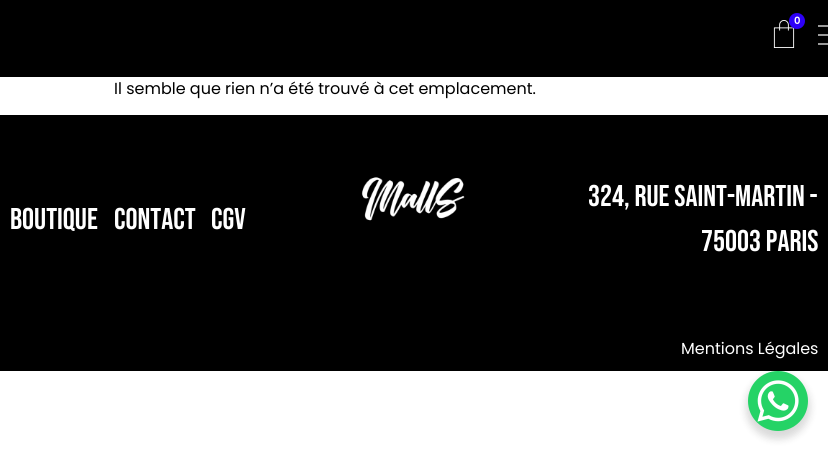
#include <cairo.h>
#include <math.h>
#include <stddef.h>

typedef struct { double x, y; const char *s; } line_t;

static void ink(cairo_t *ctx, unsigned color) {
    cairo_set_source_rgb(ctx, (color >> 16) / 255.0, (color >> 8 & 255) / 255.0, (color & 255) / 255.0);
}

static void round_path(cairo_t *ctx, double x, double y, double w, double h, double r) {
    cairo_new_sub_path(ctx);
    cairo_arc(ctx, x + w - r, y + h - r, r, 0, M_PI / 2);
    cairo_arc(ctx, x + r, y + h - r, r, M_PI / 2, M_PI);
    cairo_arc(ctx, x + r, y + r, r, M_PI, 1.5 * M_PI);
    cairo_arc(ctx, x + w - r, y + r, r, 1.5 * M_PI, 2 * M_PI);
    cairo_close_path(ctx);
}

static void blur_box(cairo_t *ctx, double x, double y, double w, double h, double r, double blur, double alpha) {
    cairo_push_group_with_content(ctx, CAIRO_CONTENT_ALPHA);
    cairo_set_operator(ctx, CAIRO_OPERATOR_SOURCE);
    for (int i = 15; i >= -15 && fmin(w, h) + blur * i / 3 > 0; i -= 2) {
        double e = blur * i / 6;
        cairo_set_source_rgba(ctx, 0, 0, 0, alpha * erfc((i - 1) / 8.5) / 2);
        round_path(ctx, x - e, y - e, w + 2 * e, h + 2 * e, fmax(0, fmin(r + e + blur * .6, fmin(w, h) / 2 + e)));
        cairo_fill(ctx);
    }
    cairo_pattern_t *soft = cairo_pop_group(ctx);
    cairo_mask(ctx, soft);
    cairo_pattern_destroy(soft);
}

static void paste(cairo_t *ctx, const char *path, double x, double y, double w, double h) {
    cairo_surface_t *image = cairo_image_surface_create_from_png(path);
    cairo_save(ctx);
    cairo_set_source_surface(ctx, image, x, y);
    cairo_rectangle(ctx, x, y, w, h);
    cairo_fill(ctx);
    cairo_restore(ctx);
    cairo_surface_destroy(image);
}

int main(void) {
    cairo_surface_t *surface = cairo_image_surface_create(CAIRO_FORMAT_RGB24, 828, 451);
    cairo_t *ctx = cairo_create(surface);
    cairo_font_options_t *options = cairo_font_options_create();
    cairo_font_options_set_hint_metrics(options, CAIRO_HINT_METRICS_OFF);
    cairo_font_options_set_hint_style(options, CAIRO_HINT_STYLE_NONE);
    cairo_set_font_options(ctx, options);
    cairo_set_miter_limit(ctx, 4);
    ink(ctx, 0xFFFFFF);
    cairo_paint(ctx);
    ink(ctx, 0x000000);
    cairo_rectangle(ctx, 0, 0, 828, 77);
    cairo_fill(ctx);
    paste(ctx, "media/1.png", 773, 20, 22, 28);
    ink(ctx, 0x2D00F7);
    cairo_arc(ctx, 797, 21, 8, 0, 2 * M_PI);
    cairo_fill(ctx);
    cairo_select_font_face(ctx, "Poppins SemiBold", CAIRO_FONT_SLANT_NORMAL, CAIRO_FONT_WEIGHT_NORMAL);
    cairo_set_font_size(ctx, 10);
    ink(ctx, 0xFFFFFF);
    cairo_move_to(ctx, 794, 24);
    cairo_show_text(ctx, "0");
    paste(ctx, "media/2.png", 818, 25, 10, 20);
    cairo_select_font_face(ctx, "Poppins", CAIRO_FONT_SLANT_NORMAL, CAIRO_FONT_WEIGHT_NORMAL);
    cairo_set_font_size(ctx, 16);
    ink(ctx, 0x000000);
    cairo_move_to(ctx, 114, 94);
    cairo_show_text(ctx, "Il semble que rien n’a été trouvé à cet emplacement.");
    cairo_rectangle(ctx, 0, 115, 828, 256);
    cairo_fill(ctx);
    cairo_select_font_face(ctx, "Bebas Neue", CAIRO_FONT_SLANT_NORMAL, CAIRO_FONT_WEIGHT_NORMAL);
    cairo_set_font_size(ctx, 30);
    ink(ctx, 0xFFFFFF);
    {
        static const line_t items[] = {
            {10, 229, "Boutique"},
            {114, 229, "contact"},
            {211, 229, "CGV"},
        };
        for (size_t i = 0; i < sizeof items / sizeof *items; i++) {
            cairo_move_to(ctx, items[i].x, items[i].y);
            cairo_show_text(ctx, items[i].s);
        }
    }
    paste(ctx, "media/3.png", 361, 177, 104, 44);
    cairo_move_to(ctx, 588, 206);
    cairo_show_text(ctx, "324, rue Saint-Martin -");
    cairo_move_to(ctx, 701, 251);
    cairo_show_text(ctx, "75003 paris");
    cairo_select_font_face(ctx, "Poppins", CAIRO_FONT_SLANT_NORMAL, CAIRO_FONT_WEIGHT_NORMAL);
    cairo_set_font_size(ctx, 16);
    cairo_move_to(ctx, 681, 354);
    cairo_show_text(ctx, "Mentions Légales");
    ink(ctx, 0x000000);
    blur_box(ctx, 746, 375, 64, 64, 32, 4, 0.15);
    ink(ctx, 0x25D366);
    cairo_arc(ctx, 778, 401, 30, 0, 2 * M_PI);
    cairo_fill(ctx);
    paste(ctx, "media/4.png", 757, 380, 42, 42);
    cairo_surface_write_to_png(surface, "image.png");
    cairo_font_options_destroy(options);
    cairo_destroy(ctx);
    cairo_surface_destroy(surface);
    return 0;
}
